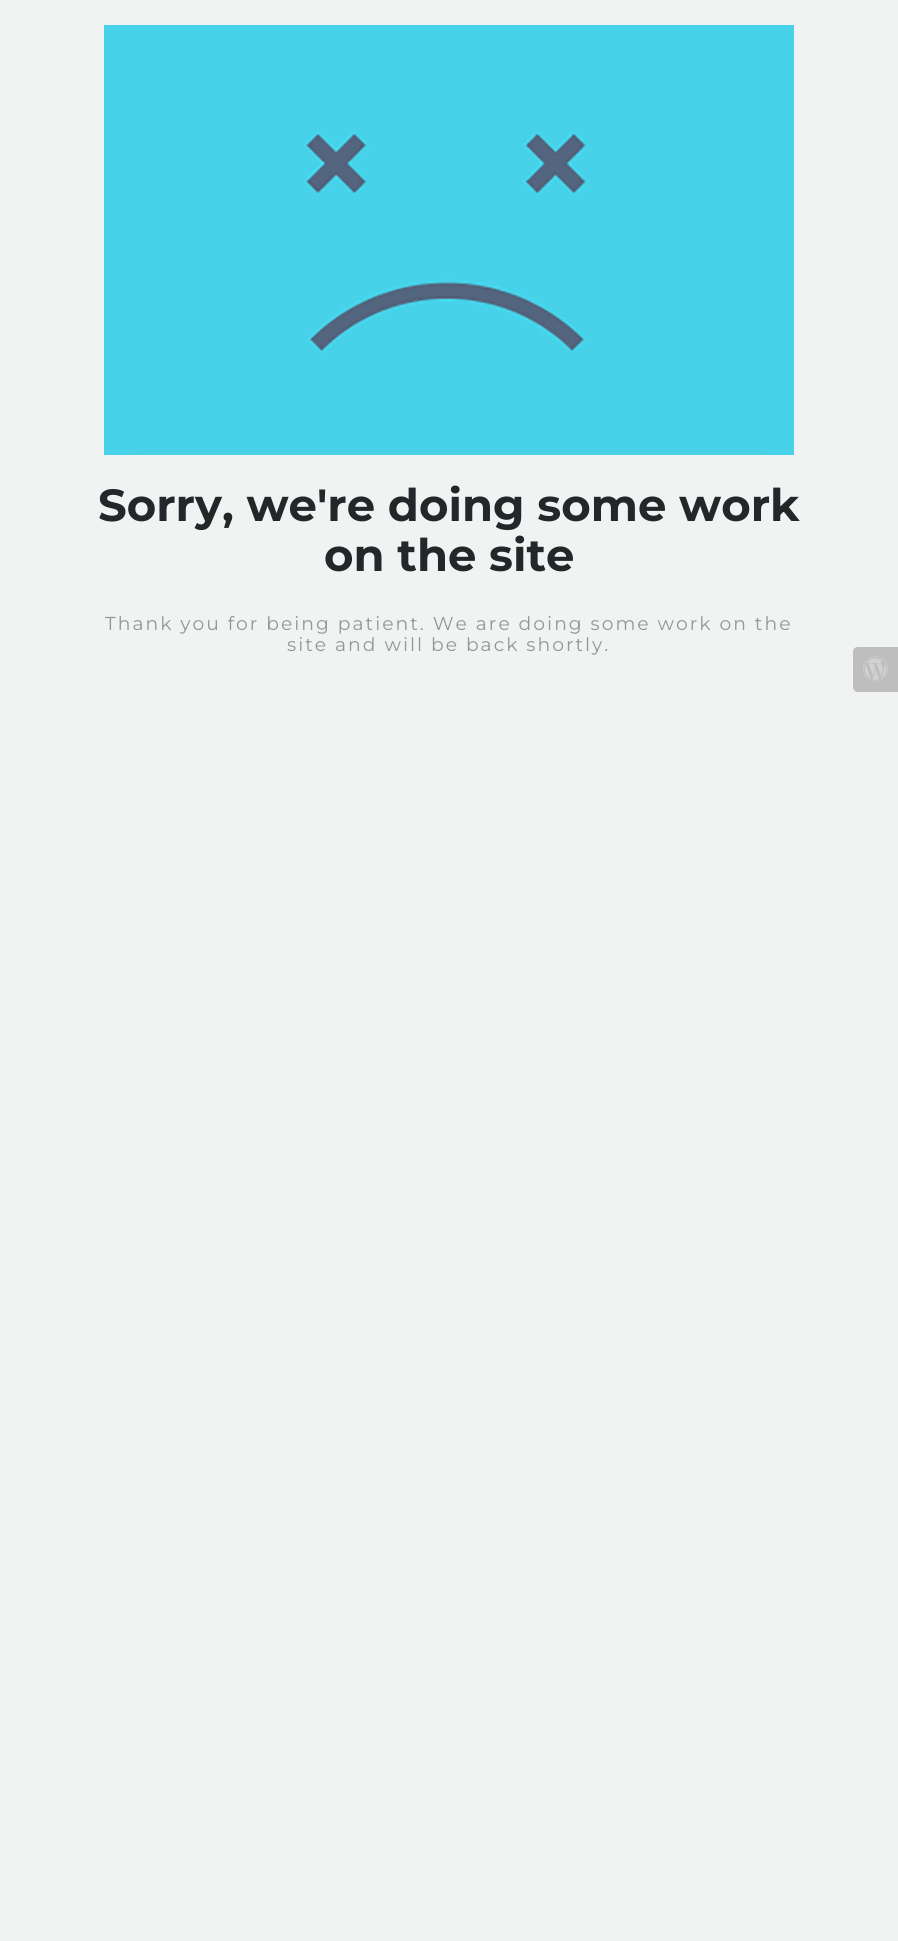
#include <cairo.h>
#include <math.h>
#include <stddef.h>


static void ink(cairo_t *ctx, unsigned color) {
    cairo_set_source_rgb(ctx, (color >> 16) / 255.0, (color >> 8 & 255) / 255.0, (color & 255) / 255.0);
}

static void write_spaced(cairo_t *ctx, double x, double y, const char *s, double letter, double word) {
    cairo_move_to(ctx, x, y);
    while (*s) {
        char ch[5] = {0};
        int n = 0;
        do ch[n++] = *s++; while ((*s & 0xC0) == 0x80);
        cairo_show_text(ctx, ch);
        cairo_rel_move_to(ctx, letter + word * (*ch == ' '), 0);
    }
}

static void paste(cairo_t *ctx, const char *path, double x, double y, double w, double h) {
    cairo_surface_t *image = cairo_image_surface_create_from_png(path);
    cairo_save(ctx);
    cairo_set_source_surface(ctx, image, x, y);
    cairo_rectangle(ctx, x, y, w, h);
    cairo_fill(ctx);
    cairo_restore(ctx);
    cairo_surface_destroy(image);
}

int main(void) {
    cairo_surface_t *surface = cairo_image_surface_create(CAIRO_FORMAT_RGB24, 898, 1941);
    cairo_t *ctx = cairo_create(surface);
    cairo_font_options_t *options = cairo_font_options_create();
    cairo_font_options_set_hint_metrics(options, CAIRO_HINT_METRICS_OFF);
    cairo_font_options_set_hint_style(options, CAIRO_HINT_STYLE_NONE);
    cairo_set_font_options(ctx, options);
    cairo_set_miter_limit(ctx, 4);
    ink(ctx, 0xF1F2F2);
    cairo_paint(ctx);
    paste(ctx, "media/1.png", 104, 25, 690, 430);
    cairo_select_font_face(ctx, "Montserrat Thin", CAIRO_FONT_SLANT_NORMAL, CAIRO_FONT_WEIGHT_NORMAL);
    cairo_set_font_size(ctx, 45);
    ink(ctx, 0x23272A);
    cairo_move_to(ctx, 98, 521);
    cairo_show_text(ctx, "Sorry, we're doing some work");
    cairo_move_to(ctx, 324, 571);
    cairo_show_text(ctx, "on the site");
    cairo_select_font_face(ctx, "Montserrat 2 Thin", CAIRO_FONT_SLANT_NORMAL, CAIRO_FONT_WEIGHT_NORMAL);
    cairo_set_font_size(ctx, 18.75);
    ink(ctx, 0x949697);
    write_spaced(ctx, 105, 630, "Thank you for being patient. We are doing some work on the", 2, 0);
    write_spaced(ctx, 287, 651, "site and will be back shortly.", 2, 0);
    ink(ctx, 0xBEBEBE);
    cairo_new_path(ctx);
    cairo_move_to(ctx, 858, 647);
    cairo_line_to(ctx, 898, 647);
    cairo_line_to(ctx, 898, 692);
    cairo_line_to(ctx, 858, 692);
    cairo_curve_to(ctx, 855, 692, 853, 690, 853, 687);
    cairo_line_to(ctx, 853, 652);
    cairo_curve_to(ctx, 853, 649, 855, 647, 858, 647);
    cairo_close_path(ctx);
    cairo_fill(ctx);
    paste(ctx, "media/2.png", 863, 656, 25, 26);
    cairo_surface_write_to_png(surface, "image.png");
    cairo_font_options_destroy(options);
    cairo_destroy(ctx);
    cairo_surface_destroy(surface);
    return 0;
}
